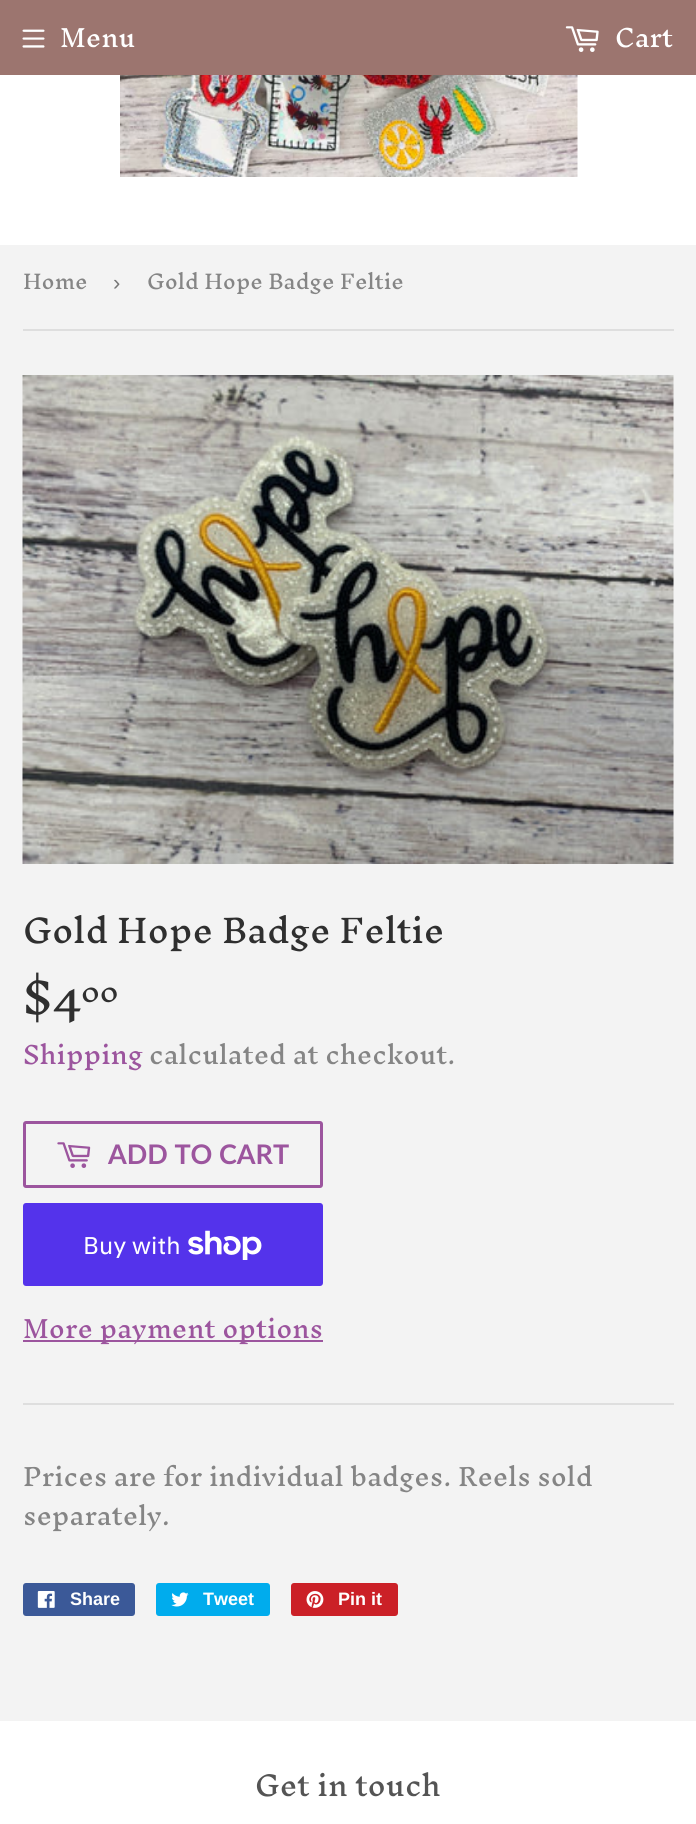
#include <cairo.h>
#include <math.h>
#include <stddef.h>


static void ink(cairo_t *ctx, unsigned color) {
    cairo_set_source_rgb(ctx, (color >> 16) / 255.0, (color >> 8 & 255) / 255.0, (color & 255) / 255.0);
}

static void round_path(cairo_t *ctx, double x, double y, double w, double h, double r) {
    cairo_new_sub_path(ctx);
    cairo_arc(ctx, x + w - r, y + h - r, r, 0, M_PI / 2);
    cairo_arc(ctx, x + r, y + h - r, r, M_PI / 2, M_PI);
    cairo_arc(ctx, x + r, y + r, r, M_PI, 1.5 * M_PI);
    cairo_arc(ctx, x + w - r, y + r, r, 1.5 * M_PI, 2 * M_PI);
    cairo_close_path(ctx);
}

static void paste(cairo_t *ctx, const char *path, double x, double y, double w, double h) {
    cairo_surface_t *image = cairo_image_surface_create_from_png(path);
    cairo_save(ctx);
    cairo_set_source_surface(ctx, image, x, y);
    cairo_rectangle(ctx, x, y, w, h);
    cairo_fill(ctx);
    cairo_restore(ctx);
    cairo_surface_destroy(image);
}

int main(void) {
    cairo_surface_t *surface = cairo_image_surface_create(CAIRO_FORMAT_RGB24, 696, 1824);
    cairo_t *ctx = cairo_create(surface);
    cairo_font_options_t *options = cairo_font_options_create();
    cairo_font_options_set_hint_metrics(options, CAIRO_HINT_METRICS_OFF);
    cairo_font_options_set_hint_style(options, CAIRO_HINT_STYLE_NONE);
    cairo_set_font_options(ctx, options);
    cairo_set_miter_limit(ctx, 4);
    ink(ctx, 0xF3F3F3);
    cairo_paint(ctx);
    ink(ctx, 0x9C756F);
    cairo_rectangle(ctx, 0, 0, 696, 75);
    cairo_fill(ctx);
    paste(ctx, "media/1.png", 22, 29, 23, 19);
    cairo_select_font_face(ctx, "Inknut Antiqua", CAIRO_FONT_SLANT_NORMAL, CAIRO_FONT_WEIGHT_NORMAL);
    cairo_set_font_size(ctx, 24);
    ink(ctx, 0xFFFFFF);
    cairo_move_to(ctx, 60, 47);
    cairo_show_text(ctx, "Menu");
    paste(ctx, "media/2.png", 565, 26, 34, 26);
    cairo_move_to(ctx, 615, 47);
    cairo_show_text(ctx, "Cart");
    cairo_rectangle(ctx, 0, 75, 696, 170);
    cairo_fill(ctx);
    paste(ctx, "media/3.png", 120, 75, 458, 102);
    ink(ctx, 0xDEDEDE);
    cairo_rectangle(ctx, 23, 329, 651, 2);
    cairo_fill(ctx);
    cairo_set_font_size(ctx, 19.5);
    ink(ctx, 0x858585);
    cairo_move_to(ctx, 23, 289);
    cairo_show_text(ctx, "Home");
    cairo_select_font_face(ctx, "Liberation Sans", CAIRO_FONT_SLANT_NORMAL, CAIRO_FONT_WEIGHT_NORMAL);
    cairo_set_font_size(ctx, 22);
    ink(ctx, 0x767676);
    cairo_move_to(ctx, 113, 290);
    cairo_show_text(ctx, "›");
    cairo_select_font_face(ctx, "Inknut Antiqua", CAIRO_FONT_SLANT_NORMAL, CAIRO_FONT_WEIGHT_NORMAL);
    cairo_set_font_size(ctx, 19.5);
    ink(ctx, 0x858585);
    cairo_move_to(ctx, 147, 289);
    cairo_show_text(ctx, "Gold Hope Badge Feltie");
    paste(ctx, "media/4.png", 22, 375, 652, 489);
    cairo_set_font_size(ctx, 32);
    ink(ctx, 0x2F2F2F);
    cairo_move_to(ctx, 23, 943);
    cairo_show_text(ctx, "Gold Hope Badge Feltie");
    cairo_set_font_size(ctx, 42);
    cairo_move_to(ctx, 23, 1014);
    cairo_show_text(ctx, "$4");
    cairo_set_font_size(ctx, 25);
    cairo_move_to(ctx, 81, 1002);
    cairo_show_text(ctx, "00");
    cairo_set_font_size(ctx, 24);
    ink(ctx, 0x9C559E);
    cairo_move_to(ctx, 23, 1064);
    cairo_show_text(ctx, "Shipping");
    ink(ctx, 0x858585);
    cairo_move_to(ctx, 149, 1064);
    cairo_show_text(ctx, "calculated at checkout.");
    round_path(ctx, 24.5, 1122.5, 297, 64, 1.5);
    ink(ctx, 0x9C559E);
    cairo_set_line_width(ctx, 3);
    cairo_stroke(ctx);
    paste(ctx, "media/5.png", 57, 1142, 34, 26);
    cairo_select_font_face(ctx, "Lato", CAIRO_FONT_SLANT_NORMAL, CAIRO_FONT_WEIGHT_BOLD);
    cairo_set_font_size(ctx, 27);
    cairo_move_to(ctx, 108, 1164);
    cairo_show_text(ctx, "ADD TO CART");
    ink(ctx, 0x5433EB);
    round_path(ctx, 23, 1203, 300, 83, 3);
    cairo_fill(ctx);
    cairo_select_font_face(ctx, "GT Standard", CAIRO_FONT_SLANT_NORMAL, CAIRO_FONT_WEIGHT_NORMAL);
    cairo_set_font_size(ctx, 24);
    ink(ctx, 0xFFFFFF);
    cairo_move_to(ctx, 83, 1254);
    cairo_show_text(ctx, "Buy with");
    paste(ctx, "media/6.png", 188, 1230, 74, 30);
    ink(ctx, 0x9C559E);
    cairo_rectangle(ctx, 23, 1340, 300, 2);
    cairo_fill(ctx);
    cairo_select_font_face(ctx, "Inknut Antiqua", CAIRO_FONT_SLANT_NORMAL, CAIRO_FONT_WEIGHT_NORMAL);
    cairo_move_to(ctx, 23, 1338);
    cairo_show_text(ctx, "More payment options");
    ink(ctx, 0xDEDEDE);
    cairo_rectangle(ctx, 23, 1403, 651, 2);
    cairo_fill(ctx);
    ink(ctx, 0x858585);
    cairo_move_to(ctx, 23, 1486);
    cairo_show_text(ctx, "Prices are for individual badges. Reels sold");
    cairo_move_to(ctx, 23, 1525);
    cairo_show_text(ctx, "separately.");
    ink(ctx, 0x3B5998);
    round_path(ctx, 23, 1583, 112, 33, 3);
    cairo_fill(ctx);
    paste(ctx, "media/7.png", 37, 1591, 18, 17);
    cairo_select_font_face(ctx, "Liberation Sans", CAIRO_FONT_SLANT_NORMAL, CAIRO_FONT_WEIGHT_BOLD);
    cairo_set_font_size(ctx, 18);
    ink(ctx, 0xFFFFFF);
    cairo_move_to(ctx, 70, 1605);
    cairo_show_text(ctx, "Share");
    ink(ctx, 0x00ACED);
    round_path(ctx, 156, 1583, 114, 33, 3);
    cairo_fill(ctx);
    paste(ctx, "media/8.png", 171, 1592, 18, 15);
    ink(ctx, 0xFFFFFF);
    cairo_move_to(ctx, 203, 1605);
    cairo_show_text(ctx, "Tweet");
    ink(ctx, 0xCB2027);
    round_path(ctx, 291, 1583, 107, 33, 3);
    cairo_fill(ctx);
    paste(ctx, "media/9.png", 306, 1591, 18, 17);
    ink(ctx, 0xFFFFFF);
    cairo_move_to(ctx, 338, 1605);
    cairo_show_text(ctx, "Pin it");
    cairo_rectangle(ctx, 0, 1721, 696, 103);
    cairo_fill(ctx);
    cairo_select_font_face(ctx, "Inknut Antiqua", CAIRO_FONT_SLANT_NORMAL, CAIRO_FONT_WEIGHT_NORMAL);
    cairo_set_font_size(ctx, 27.25);
    ink(ctx, 0x545454);
    cairo_move_to(ctx, 255, 1796);
    cairo_show_text(ctx, "Get in touch");
    cairo_surface_write_to_png(surface, "image.png");
    cairo_font_options_destroy(options);
    cairo_destroy(ctx);
    cairo_surface_destroy(surface);
    return 0;
}
